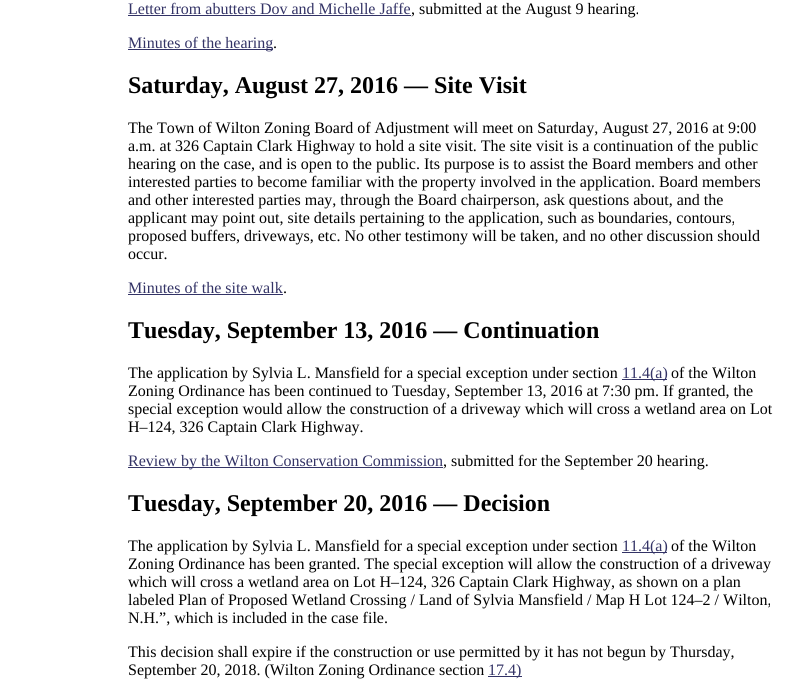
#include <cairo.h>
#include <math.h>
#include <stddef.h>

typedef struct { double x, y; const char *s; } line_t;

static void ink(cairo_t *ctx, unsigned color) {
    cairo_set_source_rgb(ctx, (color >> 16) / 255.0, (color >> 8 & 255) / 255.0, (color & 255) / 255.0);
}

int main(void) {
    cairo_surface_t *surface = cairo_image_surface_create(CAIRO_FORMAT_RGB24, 794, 688);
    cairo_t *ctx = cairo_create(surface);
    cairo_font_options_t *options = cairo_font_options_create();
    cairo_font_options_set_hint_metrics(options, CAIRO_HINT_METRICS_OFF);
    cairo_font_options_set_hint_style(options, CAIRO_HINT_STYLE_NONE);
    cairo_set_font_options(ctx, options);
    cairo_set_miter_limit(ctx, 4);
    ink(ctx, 0xFFFFFF);
    cairo_paint(ctx);
    cairo_select_font_face(ctx, "Liberation Serif", CAIRO_FONT_SLANT_NORMAL, CAIRO_FONT_WEIGHT_NORMAL);
    cairo_set_font_size(ctx, 16);
    ink(ctx, 0x333366);
    cairo_move_to(ctx, 128, 14);
    cairo_show_text(ctx, "Letter from abutters Dov and Michelle Jaffe");
    cairo_rectangle(ctx, 128, 15, 283, 1);
    cairo_fill(ctx);
    ink(ctx, 0x000000);
    cairo_move_to(ctx, 411, 14);
    cairo_show_text(ctx, ", submitted at the August 9 hearing.");
    ink(ctx, 0x333366);
    cairo_rectangle(ctx, 128, 49, 145, 1);
    cairo_fill(ctx);
    cairo_move_to(ctx, 128, 48);
    cairo_show_text(ctx, "Minutes of the hearing");
    ink(ctx, 0x000000);
    cairo_move_to(ctx, 273, 48);
    cairo_show_text(ctx, ".");
    cairo_select_font_face(ctx, "Liberation Serif", CAIRO_FONT_SLANT_NORMAL, CAIRO_FONT_WEIGHT_BOLD);
    cairo_set_font_size(ctx, 24);
    cairo_move_to(ctx, 128, 93);
    cairo_show_text(ctx, "Saturday, August 27, 2016 — Site Visit");
    cairo_select_font_face(ctx, "Liberation Serif", CAIRO_FONT_SLANT_NORMAL, CAIRO_FONT_WEIGHT_NORMAL);
    cairo_set_font_size(ctx, 16);
    {
        static const line_t items[] = {
            {128, 133, "The Town of Wilton Zoning Board of Adjustment will meet on Saturday, August 27, 2016 at 9:00"},
            {128, 151, "a.m. at 326 Captain Clark Highway to hold a site visit. The site visit is a continuation of the public"},
            {128, 169, "hearing on the case, and is open to the public. Its purpose is to assist the Board members and other"},
            {128, 187, "interested parties to become familiar with the property involved in the application. Board members"},
            {128, 205, "and other interested parties may, through the Board chairperson, ask questions about, and the"},
            {128, 223, "applicant may point out, site details pertaining to the application, such as boundaries, contours,"},
            {128, 241, "proposed buffers, driveways, etc. No other testimony will be taken, and no other discussion should"},
            {128, 259, "occur."},
        };
        for (size_t i = 0; i < sizeof items / sizeof *items; i++) {
            cairo_move_to(ctx, items[i].x, items[i].y);
            cairo_show_text(ctx, items[i].s);
        }
    }
    ink(ctx, 0x333366);
    cairo_move_to(ctx, 128, 293);
    cairo_show_text(ctx, "Minutes of the site walk");
    cairo_rectangle(ctx, 128, 294, 155, 1);
    cairo_fill(ctx);
    ink(ctx, 0x000000);
    cairo_move_to(ctx, 283, 293);
    cairo_show_text(ctx, ".");
    cairo_select_font_face(ctx, "Liberation Serif", CAIRO_FONT_SLANT_NORMAL, CAIRO_FONT_WEIGHT_BOLD);
    cairo_set_font_size(ctx, 24);
    cairo_move_to(ctx, 128, 338);
    cairo_show_text(ctx, "Tuesday, September 13, 2016 — Continuation");
    cairo_select_font_face(ctx, "Liberation Serif", CAIRO_FONT_SLANT_NORMAL, CAIRO_FONT_WEIGHT_NORMAL);
    cairo_set_font_size(ctx, 16);
    cairo_move_to(ctx, 128, 378);
    cairo_show_text(ctx, "The application by Sylvia L. Mansfield for a special exception under section");
    ink(ctx, 0x333366);
    cairo_rectangle(ctx, 622, 379, 45, 1);
    cairo_fill(ctx);
    cairo_move_to(ctx, 622, 378);
    cairo_show_text(ctx, "11.4(a)");
    ink(ctx, 0x000000);
    {
        static const line_t items[] = {
            {671, 378, "of the Wilton"},
            {128, 396, "Zoning Ordinance has been continued to Tuesday, September 13, 2016 at 7:30 pm. If granted, the"},
            {128, 414, "special exception would allow the construction of a driveway which will cross a wetland area on Lot"},
            {128, 432, "H–124, 326 Captain Clark Highway."},
        };
        for (size_t i = 0; i < sizeof items / sizeof *items; i++) {
            cairo_move_to(ctx, items[i].x, items[i].y);
            cairo_show_text(ctx, items[i].s);
        }
    }
    ink(ctx, 0x333366);
    cairo_rectangle(ctx, 128, 467, 315, 1);
    cairo_fill(ctx);
    cairo_move_to(ctx, 128, 466);
    cairo_show_text(ctx, "Review by the Wilton Conservation Commission");
    ink(ctx, 0x000000);
    cairo_move_to(ctx, 443, 466);
    cairo_show_text(ctx, ", submitted for the September 20 hearing.");
    cairo_select_font_face(ctx, "Liberation Serif", CAIRO_FONT_SLANT_NORMAL, CAIRO_FONT_WEIGHT_BOLD);
    cairo_set_font_size(ctx, 24);
    cairo_move_to(ctx, 128, 511);
    cairo_show_text(ctx, "Tuesday, September 20, 2016 — Decision");
    cairo_select_font_face(ctx, "Liberation Serif", CAIRO_FONT_SLANT_NORMAL, CAIRO_FONT_WEIGHT_NORMAL);
    cairo_set_font_size(ctx, 16);
    cairo_move_to(ctx, 128, 551);
    cairo_show_text(ctx, "The application by Sylvia L. Mansfield for a special exception under section");
    ink(ctx, 0x333366);
    cairo_rectangle(ctx, 622, 552, 45, 1);
    cairo_fill(ctx);
    cairo_move_to(ctx, 622, 551);
    cairo_show_text(ctx, "11.4(a)");
    ink(ctx, 0x000000);
    {
        static const line_t items[] = {
            {671, 551, "of the Wilton"},
            {128, 569, "Zoning Ordinance has been granted. The special exception will allow the construction of a driveway"},
            {128, 587, "which will cross a wetland area on Lot H–124, 326 Captain Clark Highway, as shown on a plan"},
            {128, 605, "labeled Plan of Proposed Wetland Crossing / Land of Sylvia Mansfield / Map H Lot 124–2 / Wilton,"},
            {128, 623, "N.H.”, which is included in the case file."},
            {128, 657, "This decision shall expire if the construction or use permitted by it has not begun by Thursday,"},
            {128, 675, "September 20, 2018. (Wilton Zoning Ordinance section"},
        };
        for (size_t i = 0; i < sizeof items / sizeof *items; i++) {
            cairo_move_to(ctx, items[i].x, items[i].y);
            cairo_show_text(ctx, items[i].s);
        }
    }
    ink(ctx, 0x333366);
    cairo_rectangle(ctx, 488, 676, 34, 1);
    cairo_fill(ctx);
    cairo_move_to(ctx, 488, 675);
    cairo_show_text(ctx, "17.4)");
    cairo_surface_write_to_png(surface, "image.png");
    cairo_font_options_destroy(options);
    cairo_destroy(ctx);
    cairo_surface_destroy(surface);
    return 0;
}
